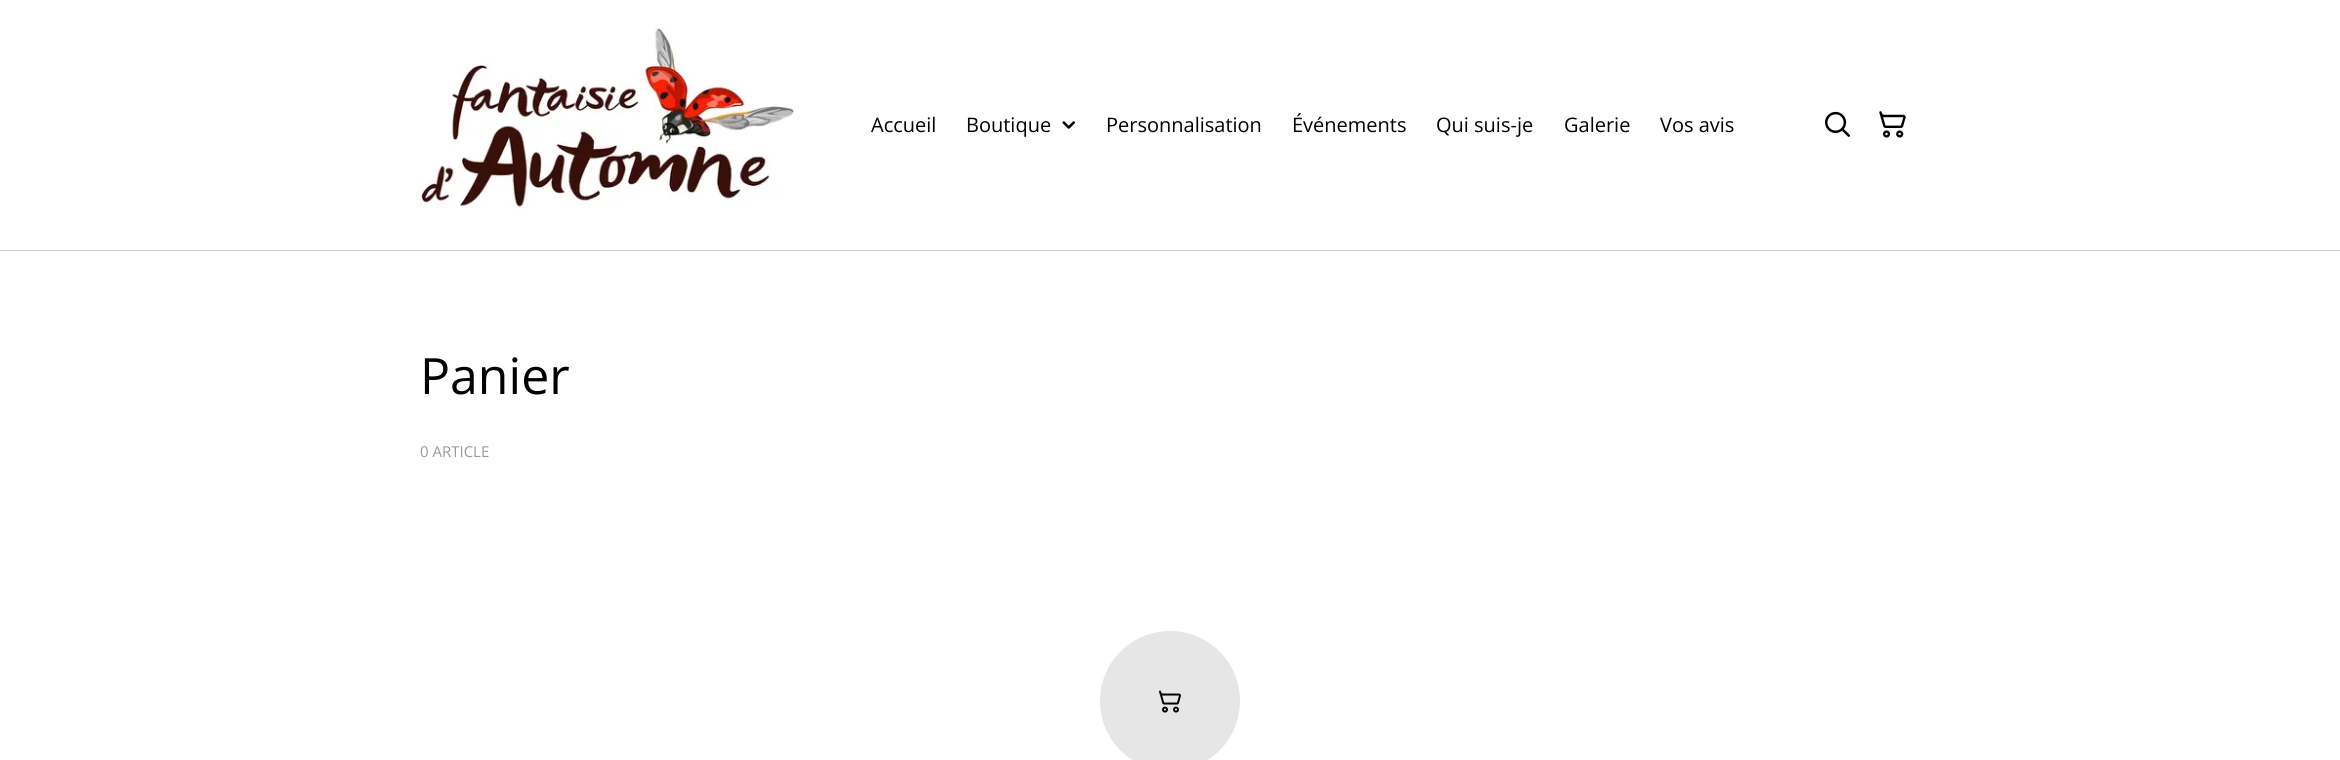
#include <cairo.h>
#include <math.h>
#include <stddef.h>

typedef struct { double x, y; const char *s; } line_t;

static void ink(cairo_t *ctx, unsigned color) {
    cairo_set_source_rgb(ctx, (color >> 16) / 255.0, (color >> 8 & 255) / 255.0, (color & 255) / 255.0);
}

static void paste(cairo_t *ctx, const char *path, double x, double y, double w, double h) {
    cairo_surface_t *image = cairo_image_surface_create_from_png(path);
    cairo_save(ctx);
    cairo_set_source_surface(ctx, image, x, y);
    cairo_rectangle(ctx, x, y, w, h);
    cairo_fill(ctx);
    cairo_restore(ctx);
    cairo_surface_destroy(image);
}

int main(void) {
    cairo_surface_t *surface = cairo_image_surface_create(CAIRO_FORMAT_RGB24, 2340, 760);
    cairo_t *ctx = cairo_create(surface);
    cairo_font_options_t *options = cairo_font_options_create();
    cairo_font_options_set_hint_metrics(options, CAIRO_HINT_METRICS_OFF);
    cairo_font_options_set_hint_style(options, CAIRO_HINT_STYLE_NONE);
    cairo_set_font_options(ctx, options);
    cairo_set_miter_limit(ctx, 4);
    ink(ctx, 0xFFFFFF);
    cairo_paint(ctx);
    ink(ctx, 0xCCCCCC);
    cairo_rectangle(ctx, 0, 250, 2340, 1);
    cairo_fill(ctx);
    paste(ctx, "media/1.png", 420, 28, 375, 181);
    cairo_select_font_face(ctx, "Open Sans", CAIRO_FONT_SLANT_NORMAL, CAIRO_FONT_WEIGHT_NORMAL);
    cairo_set_font_size(ctx, 20);
    ink(ctx, 0x000000);
    cairo_move_to(ctx, 871, 132);
    cairo_show_text(ctx, "Accueil");
    cairo_move_to(ctx, 966, 132);
    cairo_show_text(ctx, "Boutique");
    paste(ctx, "media/2.png", 1062, 121, 13, 8);
    {
        static const line_t items[] = {
            {1106, 132, "Personnalisation"},
            {1292, 132, "Événements"},
            {1436, 132, "Qui suis-je"},
            {1564, 132, "Galerie"},
            {1660, 132, "Vos avis"},
        };
        for (size_t i = 0; i < sizeof items / sizeof *items; i++) {
            cairo_move_to(ctx, items[i].x, items[i].y);
            cairo_show_text(ctx, items[i].s);
        }
    }
    paste(ctx, "media/3.png", 1825, 111, 25, 26);
    paste(ctx, "media/4.png", 1879, 111, 27, 27);
    cairo_set_font_size(ctx, 50);
    cairo_move_to(ctx, 420, 394);
    cairo_show_text(ctx, "Panier");
    cairo_set_font_size(ctx, 15);
    ink(ctx, 0x999999);
    cairo_move_to(ctx, 420, 457);
    cairo_show_text(ctx, "0 ARTICLE");
    ink(ctx, 0xE6E6E6);
    cairo_new_path(ctx);
    cairo_arc(ctx, 1170, 701, 70, 0, 2 * M_PI);
    cairo_fill(ctx);
    paste(ctx, "media/5.png", 1159, 690, 22, 23);
    cairo_surface_write_to_png(surface, "image.png");
    cairo_font_options_destroy(options);
    cairo_destroy(ctx);
    cairo_surface_destroy(surface);
    return 0;
}
